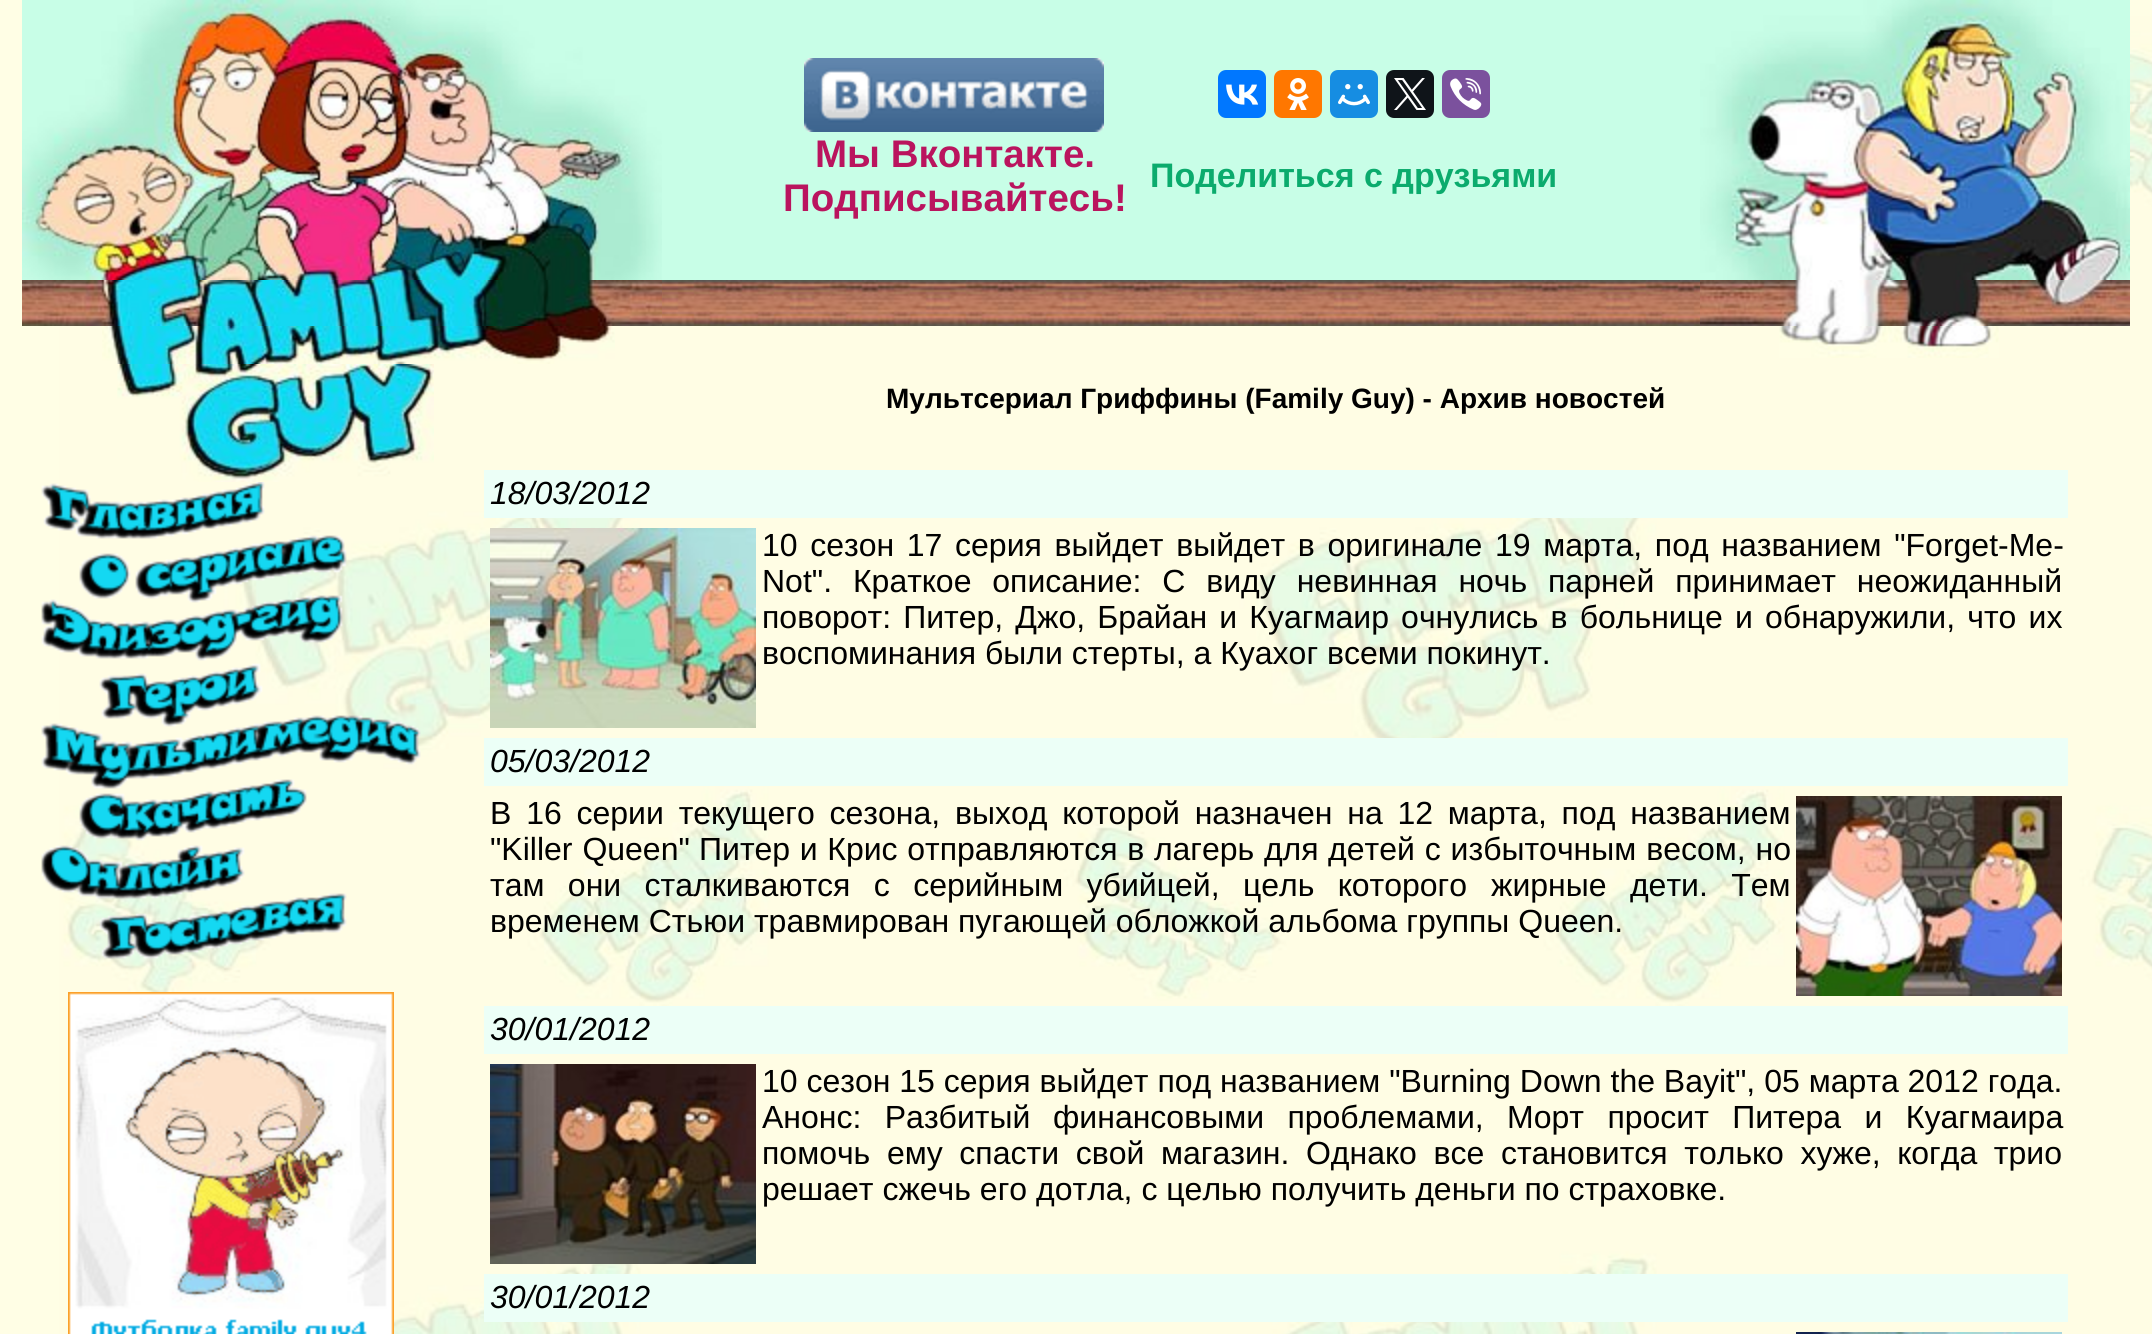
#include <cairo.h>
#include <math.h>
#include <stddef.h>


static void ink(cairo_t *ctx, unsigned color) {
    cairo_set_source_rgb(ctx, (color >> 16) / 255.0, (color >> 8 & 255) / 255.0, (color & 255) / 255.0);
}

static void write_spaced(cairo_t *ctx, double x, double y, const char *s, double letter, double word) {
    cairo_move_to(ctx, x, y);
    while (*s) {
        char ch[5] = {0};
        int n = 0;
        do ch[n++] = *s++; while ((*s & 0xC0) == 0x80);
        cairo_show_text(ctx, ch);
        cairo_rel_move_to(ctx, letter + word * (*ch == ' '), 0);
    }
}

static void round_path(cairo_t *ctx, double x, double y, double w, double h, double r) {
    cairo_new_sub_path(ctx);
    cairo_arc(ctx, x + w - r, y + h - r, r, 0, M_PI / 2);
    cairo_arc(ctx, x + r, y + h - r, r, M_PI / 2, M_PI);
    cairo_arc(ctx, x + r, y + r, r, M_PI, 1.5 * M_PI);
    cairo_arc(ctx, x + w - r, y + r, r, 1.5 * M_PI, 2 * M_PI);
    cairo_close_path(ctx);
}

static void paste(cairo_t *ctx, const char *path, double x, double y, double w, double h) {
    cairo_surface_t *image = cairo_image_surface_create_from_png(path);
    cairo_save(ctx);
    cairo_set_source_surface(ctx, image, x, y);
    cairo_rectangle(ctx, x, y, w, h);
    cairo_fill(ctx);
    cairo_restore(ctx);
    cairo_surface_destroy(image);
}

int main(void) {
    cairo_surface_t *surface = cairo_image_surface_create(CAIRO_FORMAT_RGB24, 2152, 1334);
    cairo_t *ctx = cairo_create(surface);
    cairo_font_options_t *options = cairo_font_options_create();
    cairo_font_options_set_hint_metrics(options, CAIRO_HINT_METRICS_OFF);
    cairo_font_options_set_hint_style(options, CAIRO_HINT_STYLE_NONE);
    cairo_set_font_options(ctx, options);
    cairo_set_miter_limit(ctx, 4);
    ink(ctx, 0xFFFEE5);
    cairo_paint(ctx);
    paste(ctx, "media/1.png", 59, 16, 2093, 1318);
    paste(ctx, "media/2.png", 22, 0, 640, 280);
    ink(ctx, 0xC8FEE7);
    cairo_rectangle(ctx, 662, 0, 1038, 280);
    cairo_fill(ctx);
    paste(ctx, "media/3.png", 804, 58, 300, 74);
    ink(ctx, 0x0077FF);
    round_path(ctx, 1218, 70, 48, 48, 8);
    cairo_fill(ctx);
    paste(ctx, "media/4.png", 1226, 84, 33, 21);
    ink(ctx, 0xFF7700);
    round_path(ctx, 1274, 70, 48, 48, 8);
    cairo_fill(ctx);
    paste(ctx, "media/5.png", 1287, 78, 22, 32);
    ink(ctx, 0x168DE2);
    round_path(ctx, 1330, 70, 48, 48, 8);
    cairo_fill(ctx);
    paste(ctx, "media/6.png", 1338, 84, 32, 22);
    ink(ctx, 0x0F1419);
    round_path(ctx, 1386, 70, 48, 48, 8);
    cairo_fill(ctx);
    paste(ctx, "media/7.png", 1394, 78, 32, 32);
    ink(ctx, 0x7B519D);
    round_path(ctx, 1442, 70, 48, 48, 8);
    cairo_fill(ctx);
    paste(ctx, "media/8.png", 1450, 78, 32, 32);
    cairo_select_font_face(ctx, "Liberation Sans", CAIRO_FONT_SLANT_NORMAL, CAIRO_FONT_WEIGHT_BOLD);
    cairo_set_font_size(ctx, 38.5);
    ink(ctx, 0xBA145E);
    cairo_move_to(ctx, 815, 167);
    cairo_show_text(ctx, "Мы Вконтакте.");
    cairo_move_to(ctx, 783, 211);
    cairo_show_text(ctx, "Подписывайтесь!");
    cairo_set_font_size(ctx, 34);
    ink(ctx, 0x0BAB6D);
    cairo_move_to(ctx, 1150, 187);
    cairo_show_text(ctx, "Поделиться с друзьями");
    paste(ctx, "media/9.png", 1700, 0, 430, 280);
    paste(ctx, "media/10.png", 22, 280, 640, 46);
    paste(ctx, "media/11.png", 662, 280, 1038, 46);
    paste(ctx, "media/12.png", 1700, 280, 430, 46);
    paste(ctx, "media/13.png", 102, 326, 513, 38);
    paste(ctx, "media/14.png", 1779, 326, 220, 32);
    paste(ctx, "media/15.png", 117, 364, 317, 118);
    paste(ctx, "media/16.png", 41, 482, 380, 477);
    paste(ctx, "media/17.png", 68, 992, 326, 342);
    cairo_set_font_size(ctx, 28);
    ink(ctx, 0x000000);
    cairo_move_to(ctx, 886, 408);
    cairo_show_text(ctx, "Мультсериал Гриффины (Family Guy) - Архив новостей");
    ink(ctx, 0xECFFF7);
    cairo_rectangle(ctx, 484, 470, 1584, 48);
    cairo_fill(ctx);
    cairo_select_font_face(ctx, "Liberation Sans", CAIRO_FONT_SLANT_ITALIC, CAIRO_FONT_WEIGHT_NORMAL);
    cairo_set_font_size(ctx, 32);
    ink(ctx, 0x000000);
    cairo_move_to(ctx, 490, 504);
    cairo_show_text(ctx, "18/03/2012");
    paste(ctx, "media/18.png", 490, 528, 266, 200);
    cairo_select_font_face(ctx, "Liberation Sans", CAIRO_FONT_SLANT_NORMAL, CAIRO_FONT_WEIGHT_NORMAL);
    write_spaced(ctx, 762, 556, "10 сезон 17 серия выйдет выйдет в оригинале 19 марта, под названием \"Forget-Me-", 0, 3.75);
    write_spaced(ctx, 762, 592, "Not\". Краткое описание: С виду невинная ночь", 0, 12);
    write_spaced(ctx, 1548, 592, "парней принимает неожиданный", 0, 12);
    write_spaced(ctx, 762, 628, "поворот: Питер, Джо, Брайан и Куагмаир очнулись в больнице и обнаружили, что их", 0, 3.25);
    cairo_move_to(ctx, 762, 664);
    cairo_show_text(ctx, "воспоминания были стерты, а Куахог всеми покинут.");
    ink(ctx, 0xECFFF7);
    cairo_rectangle(ctx, 484, 738, 1584, 48);
    cairo_fill(ctx);
    cairo_select_font_face(ctx, "Liberation Sans", CAIRO_FONT_SLANT_ITALIC, CAIRO_FONT_WEIGHT_NORMAL);
    ink(ctx, 0x000000);
    cairo_move_to(ctx, 490, 772);
    cairo_show_text(ctx, "05/03/2012");
    cairo_select_font_face(ctx, "Liberation Sans", CAIRO_FONT_SLANT_NORMAL, CAIRO_FONT_WEIGHT_NORMAL);
    write_spaced(ctx, 490, 824, "В 16 серии текущего сезона, выход которой назначен на 12 марта, под названием", 0, 5.9);
    paste(ctx, "media/19.png", 1796, 796, 266, 200);
    write_spaced(ctx, 490, 860, "\"Killer Queen\"", 0, 1);
    write_spaced(ctx, 699, 860, "Питер и Крис отправляются в лагерь для", 0, 0.75);
    write_spaced(ctx, 1328, 860, "детей с избыточным весом, но", 0, 1);
    write_spaced(ctx, 490, 896, "там они сталкиваются с серийным убийцей, цель которого", 0, 14.5);
    write_spaced(ctx, 1491, 896, "жирные дети. Тем", 0, 14.5);
    cairo_move_to(ctx, 490, 932);
    cairo_show_text(ctx, "временем Стьюи травмирован пугающей обложкой альбома группы Queen.");
    ink(ctx, 0xECFFF7);
    cairo_rectangle(ctx, 484, 1006, 1584, 48);
    cairo_fill(ctx);
    cairo_select_font_face(ctx, "Liberation Sans", CAIRO_FONT_SLANT_ITALIC, CAIRO_FONT_WEIGHT_NORMAL);
    ink(ctx, 0x000000);
    cairo_move_to(ctx, 490, 1040);
    cairo_show_text(ctx, "30/01/2012");
    paste(ctx, "media/20.png", 490, 1064, 266, 200);
    cairo_select_font_face(ctx, "Liberation Sans", CAIRO_FONT_SLANT_NORMAL, CAIRO_FONT_WEIGHT_NORMAL);
    cairo_move_to(ctx, 762, 1092);
    cairo_show_text(ctx, "10 сезон 15 серия выйдет под названием \"Burning Down the Bayit\", 05 марта 2012 года.");
    write_spaced(ctx, 762, 1128, "Анонс: Разбитый", 0, 14.5);
    write_spaced(ctx, 1053, 1128, "финансовыми проблемами, Морт просит Питера и Куагмаира", 0, 14.5);
    write_spaced(ctx, 762, 1164, "помочь ему спасти свой магазин. Однако все становится только хуже, когда трио", 0, 7.75);
    cairo_move_to(ctx, 762, 1200);
    cairo_show_text(ctx, "решает сжечь его дотла, с целью получить деньги по страховке.");
    ink(ctx, 0xECFFF7);
    cairo_rectangle(ctx, 484, 1274, 1584, 48);
    cairo_fill(ctx);
    cairo_select_font_face(ctx, "Liberation Sans", CAIRO_FONT_SLANT_ITALIC, CAIRO_FONT_WEIGHT_NORMAL);
    ink(ctx, 0x000000);
    cairo_move_to(ctx, 490, 1308);
    cairo_show_text(ctx, "30/01/2012");
    paste(ctx, "media/21.png", 1796, 1332, 266, 2);
    cairo_surface_write_to_png(surface, "image.png");
    cairo_font_options_destroy(options);
    cairo_destroy(ctx);
    cairo_surface_destroy(surface);
    return 0;
}
